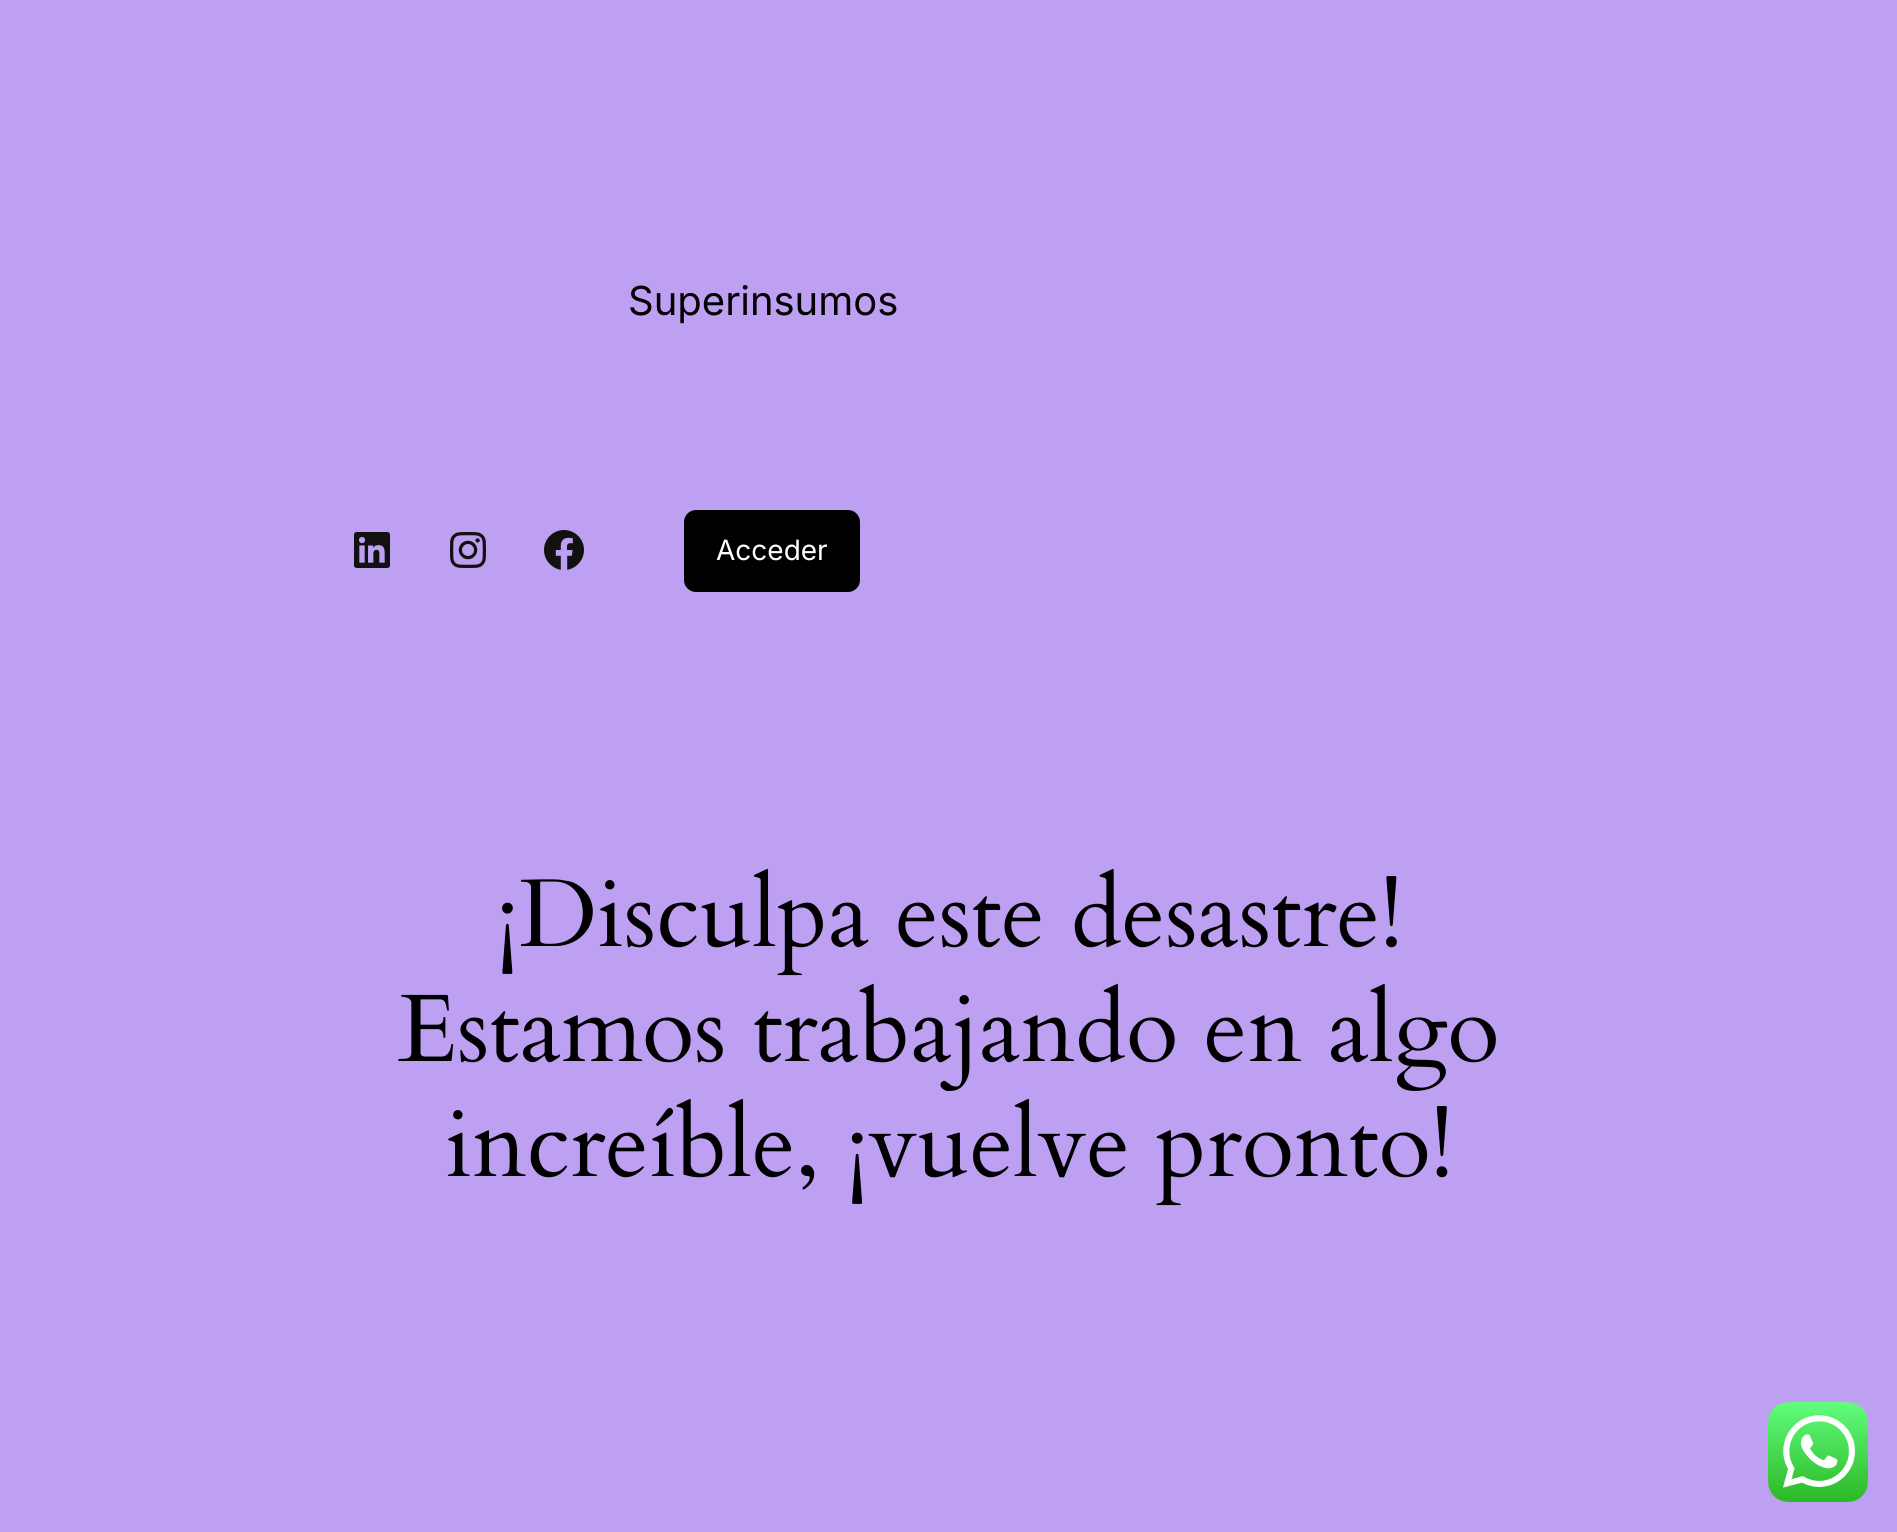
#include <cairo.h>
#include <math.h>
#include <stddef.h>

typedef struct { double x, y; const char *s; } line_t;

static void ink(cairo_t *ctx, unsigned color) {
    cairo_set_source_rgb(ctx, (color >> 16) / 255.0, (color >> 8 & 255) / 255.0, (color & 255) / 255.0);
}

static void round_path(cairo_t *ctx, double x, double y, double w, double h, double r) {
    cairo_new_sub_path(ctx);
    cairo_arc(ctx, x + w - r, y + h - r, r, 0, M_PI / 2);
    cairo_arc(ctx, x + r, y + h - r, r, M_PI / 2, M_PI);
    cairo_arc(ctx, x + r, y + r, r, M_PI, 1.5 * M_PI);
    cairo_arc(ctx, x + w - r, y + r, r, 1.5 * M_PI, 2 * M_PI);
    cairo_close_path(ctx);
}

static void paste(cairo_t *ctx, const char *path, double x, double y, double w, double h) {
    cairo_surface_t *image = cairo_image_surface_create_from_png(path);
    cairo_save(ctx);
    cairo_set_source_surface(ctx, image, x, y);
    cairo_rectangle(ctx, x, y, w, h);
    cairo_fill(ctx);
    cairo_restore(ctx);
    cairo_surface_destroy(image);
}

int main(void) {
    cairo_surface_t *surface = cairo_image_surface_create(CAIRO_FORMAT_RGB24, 1897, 1532);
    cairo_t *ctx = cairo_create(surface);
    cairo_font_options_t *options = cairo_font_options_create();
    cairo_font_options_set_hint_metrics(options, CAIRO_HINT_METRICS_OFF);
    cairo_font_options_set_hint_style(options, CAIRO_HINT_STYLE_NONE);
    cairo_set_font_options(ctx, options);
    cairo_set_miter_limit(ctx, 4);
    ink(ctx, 0xBEA0F2);
    cairo_paint(ctx);
    cairo_select_font_face(ctx, "Inter", CAIRO_FONT_SLANT_NORMAL, CAIRO_FONT_WEIGHT_NORMAL);
    cairo_set_font_size(ctx, 40);
    ink(ctx, 0x000000);
    cairo_move_to(ctx, 628, 315);
    cairo_show_text(ctx, "Superinsumos");
    paste(ctx, "media/1.png", 354, 532, 36, 36);
    paste(ctx, "media/2.png", 450, 532, 36, 36);
    paste(ctx, "media/3.png", 544, 530, 40, 40);
    round_path(ctx, 684, 510, 176, 82, 12);
    cairo_fill(ctx);
    cairo_set_font_size(ctx, 28);
    ink(ctx, 0xFFFFFF);
    cairo_move_to(ctx, 716, 560);
    cairo_show_text(ctx, "Acceder");
    cairo_select_font_face(ctx, "Cardo", CAIRO_FONT_SLANT_NORMAL, CAIRO_FONT_WEIGHT_NORMAL);
    cairo_set_font_size(ctx, 96);
    ink(ctx, 0x000000);
    {
        static const line_t items[] = {
            {496, 946, "¡Disculpa este desastre!"},
            {398, 1061, "Estamos trabajando en algo"},
            {445, 1176, "increíble, ¡vuelve pronto!"},
        };
        for (size_t i = 0; i < sizeof items / sizeof *items; i++) {
            cairo_move_to(ctx, items[i].x, items[i].y);
            cairo_show_text(ctx, items[i].s);
        }
    }
    paste(ctx, "media/4.png", 1768, 1402, 100, 100);
    cairo_surface_write_to_png(surface, "image.png");
    cairo_font_options_destroy(options);
    cairo_destroy(ctx);
    cairo_surface_destroy(surface);
    return 0;
}
